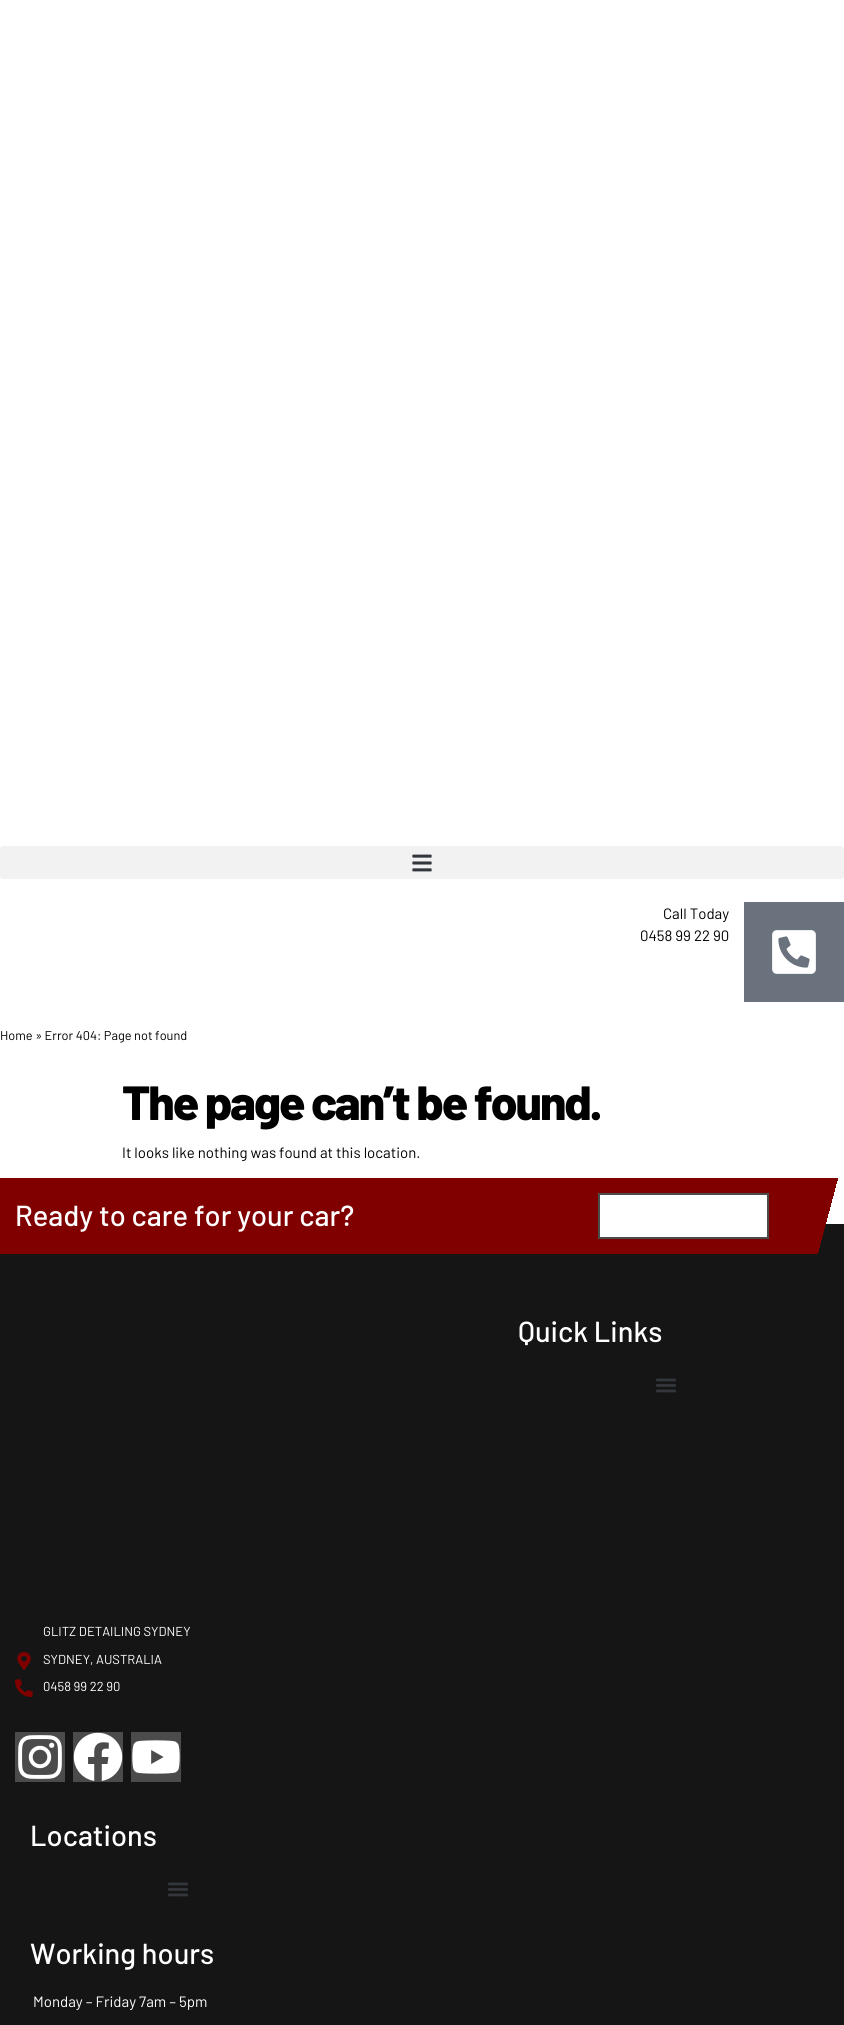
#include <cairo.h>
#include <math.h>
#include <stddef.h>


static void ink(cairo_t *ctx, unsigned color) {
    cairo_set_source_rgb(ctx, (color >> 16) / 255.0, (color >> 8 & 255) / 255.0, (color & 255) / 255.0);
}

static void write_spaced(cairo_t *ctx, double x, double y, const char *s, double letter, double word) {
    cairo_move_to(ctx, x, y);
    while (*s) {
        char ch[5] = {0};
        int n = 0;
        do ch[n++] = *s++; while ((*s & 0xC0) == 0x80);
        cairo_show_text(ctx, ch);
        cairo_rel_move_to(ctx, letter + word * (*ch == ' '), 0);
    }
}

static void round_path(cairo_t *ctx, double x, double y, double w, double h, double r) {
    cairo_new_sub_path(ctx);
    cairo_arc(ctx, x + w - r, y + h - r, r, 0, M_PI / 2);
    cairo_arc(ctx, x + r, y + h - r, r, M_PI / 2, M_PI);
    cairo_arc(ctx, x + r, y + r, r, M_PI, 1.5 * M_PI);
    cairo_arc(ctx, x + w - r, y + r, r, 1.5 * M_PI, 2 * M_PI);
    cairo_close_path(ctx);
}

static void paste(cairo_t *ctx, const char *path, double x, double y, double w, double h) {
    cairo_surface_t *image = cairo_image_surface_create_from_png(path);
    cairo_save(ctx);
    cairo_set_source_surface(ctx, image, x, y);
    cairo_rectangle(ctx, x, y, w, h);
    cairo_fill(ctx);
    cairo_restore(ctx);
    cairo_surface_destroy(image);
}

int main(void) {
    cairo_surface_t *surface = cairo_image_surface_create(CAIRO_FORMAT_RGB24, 844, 2025);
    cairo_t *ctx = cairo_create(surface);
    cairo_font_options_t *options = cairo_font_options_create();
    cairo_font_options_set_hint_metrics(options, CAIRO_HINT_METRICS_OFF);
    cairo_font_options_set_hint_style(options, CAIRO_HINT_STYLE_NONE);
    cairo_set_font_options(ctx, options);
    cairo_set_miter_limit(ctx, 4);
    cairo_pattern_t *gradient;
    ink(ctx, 0xFFFFFF);
    cairo_paint(ctx);
    ink(ctx, 0xF2F2F2);
    round_path(ctx, 0, 846, 844, 33, 3);
    cairo_fill(ctx);
    paste(ctx, "media/1.png", 412, 854, 20, 18);
    cairo_select_font_face(ctx, "Barlow", CAIRO_FONT_SLANT_NORMAL, CAIRO_FONT_WEIGHT_NORMAL);
    cairo_set_font_size(ctx, 15);
    ink(ctx, 0x000000);
    cairo_move_to(ctx, 663, 919);
    cairo_show_text(ctx, "Call Today");
    cairo_move_to(ctx, 640, 941);
    cairo_show_text(ctx, "0458 99 22 90");
    ink(ctx, 0x69727D);
    cairo_rectangle(ctx, 744, 902, 100, 100);
    cairo_fill(ctx);
    paste(ctx, "media/2.png", 772, 930, 44, 44);
    cairo_set_font_size(ctx, 12.75);
    ink(ctx, 0x000000);
    cairo_move_to(ctx, 0, 1040);
    cairo_show_text(ctx, "Home » Error 404: Page not found");
    cairo_select_font_face(ctx, "Barlow ExtraBold", CAIRO_FONT_SLANT_NORMAL, CAIRO_FONT_WEIGHT_NORMAL);
    cairo_set_font_size(ctx, 48);
    write_spaced(ctx, 122, 1120, "The page can’t be found.", -2, 0);
    cairo_select_font_face(ctx, "Barlow", CAIRO_FONT_SLANT_NORMAL, CAIRO_FONT_WEIGHT_NORMAL);
    cairo_set_font_size(ctx, 15);
    cairo_move_to(ctx, 122, 1158);
    cairo_show_text(ctx, "It looks like nothing was found at this location.");
    ink(ctx, 0x151515);
    cairo_rectangle(ctx, 0, 1224, 844, 801);
    cairo_fill(ctx);
    gradient = cairo_pattern_create_linear(19, 1108, 825, 1324);
    cairo_pattern_add_color_stop_rgba(gradient, 0.97, 0.502, 0, 0, 1);
    cairo_pattern_add_color_stop_rgba(gradient, 0.97, 0.502, 0, 0, 0);
    cairo_set_source(ctx, gradient);
    cairo_pattern_destroy(gradient);
    cairo_rectangle(ctx, 0, 1178, 838, 76);
    cairo_fill(ctx);
    cairo_select_font_face(ctx, "Barlow Medium", CAIRO_FONT_SLANT_NORMAL, CAIRO_FONT_WEIGHT_NORMAL);
    cairo_set_font_size(ctx, 29);
    ink(ctx, 0xFFFFFF);
    cairo_move_to(ctx, 15, 1226);
    cairo_show_text(ctx, "Ready to care for your car?");
    cairo_rectangle(ctx, 599, 1194, 169, 44);
    cairo_fill_preserve(ctx);
    ink(ctx, 0x4B4B4B);
    cairo_stroke(ctx);
    ink(ctx, 0xFFFFFF);
    cairo_move_to(ctx, 518, 1342);
    cairo_show_text(ctx, "Quick Links");
    paste(ctx, "media/3.png", 656, 1378, 20, 15);
    cairo_select_font_face(ctx, "Barlow", CAIRO_FONT_SLANT_NORMAL, CAIRO_FONT_WEIGHT_NORMAL);
    cairo_set_font_size(ctx, 13);
    cairo_move_to(ctx, 43, 1636);
    cairo_show_text(ctx, "GLITZ DETAILING SYDNEY");
    paste(ctx, "media/4.png", 17, 1652, 14, 18);
    cairo_move_to(ctx, 43, 1664);
    cairo_show_text(ctx, "SYDNEY, AUSTRALIA");
    paste(ctx, "media/5.png", 15, 1679, 18, 18);
    cairo_move_to(ctx, 43, 1691);
    cairo_show_text(ctx, "0458 99 22 90");
    ink(ctx, 0x4B4B4B);
    cairo_rectangle(ctx, 15, 1732, 50, 50);
    cairo_fill(ctx);
    paste(ctx, "media/6.png", 18, 1735, 44, 44);
    cairo_rectangle(ctx, 73, 1732, 50, 50);
    cairo_fill(ctx);
    paste(ctx, "media/7.png", 73, 1732, 50, 49);
    cairo_rectangle(ctx, 131, 1732, 50, 50);
    cairo_fill(ctx);
    paste(ctx, "media/8.png", 132, 1740, 48, 34);
    cairo_select_font_face(ctx, "Barlow Medium", CAIRO_FONT_SLANT_NORMAL, CAIRO_FONT_WEIGHT_NORMAL);
    cairo_set_font_size(ctx, 29);
    ink(ctx, 0xFFFFFF);
    cairo_move_to(ctx, 30, 1846);
    cairo_show_text(ctx, "Locations");
    paste(ctx, "media/3.png", 168, 1882, 20, 15);
    cairo_move_to(ctx, 30, 1964);
    cairo_show_text(ctx, "Working hours");
    cairo_select_font_face(ctx, "Barlow", CAIRO_FONT_SLANT_NORMAL, CAIRO_FONT_WEIGHT_NORMAL);
    cairo_set_font_size(ctx, 15);
    cairo_move_to(ctx, 33, 2007);
    cairo_show_text(ctx, "Monday – Friday 7am – 5pm");
    cairo_surface_write_to_png(surface, "image.png");
    cairo_font_options_destroy(options);
    cairo_destroy(ctx);
    cairo_surface_destroy(surface);
    return 0;
}
